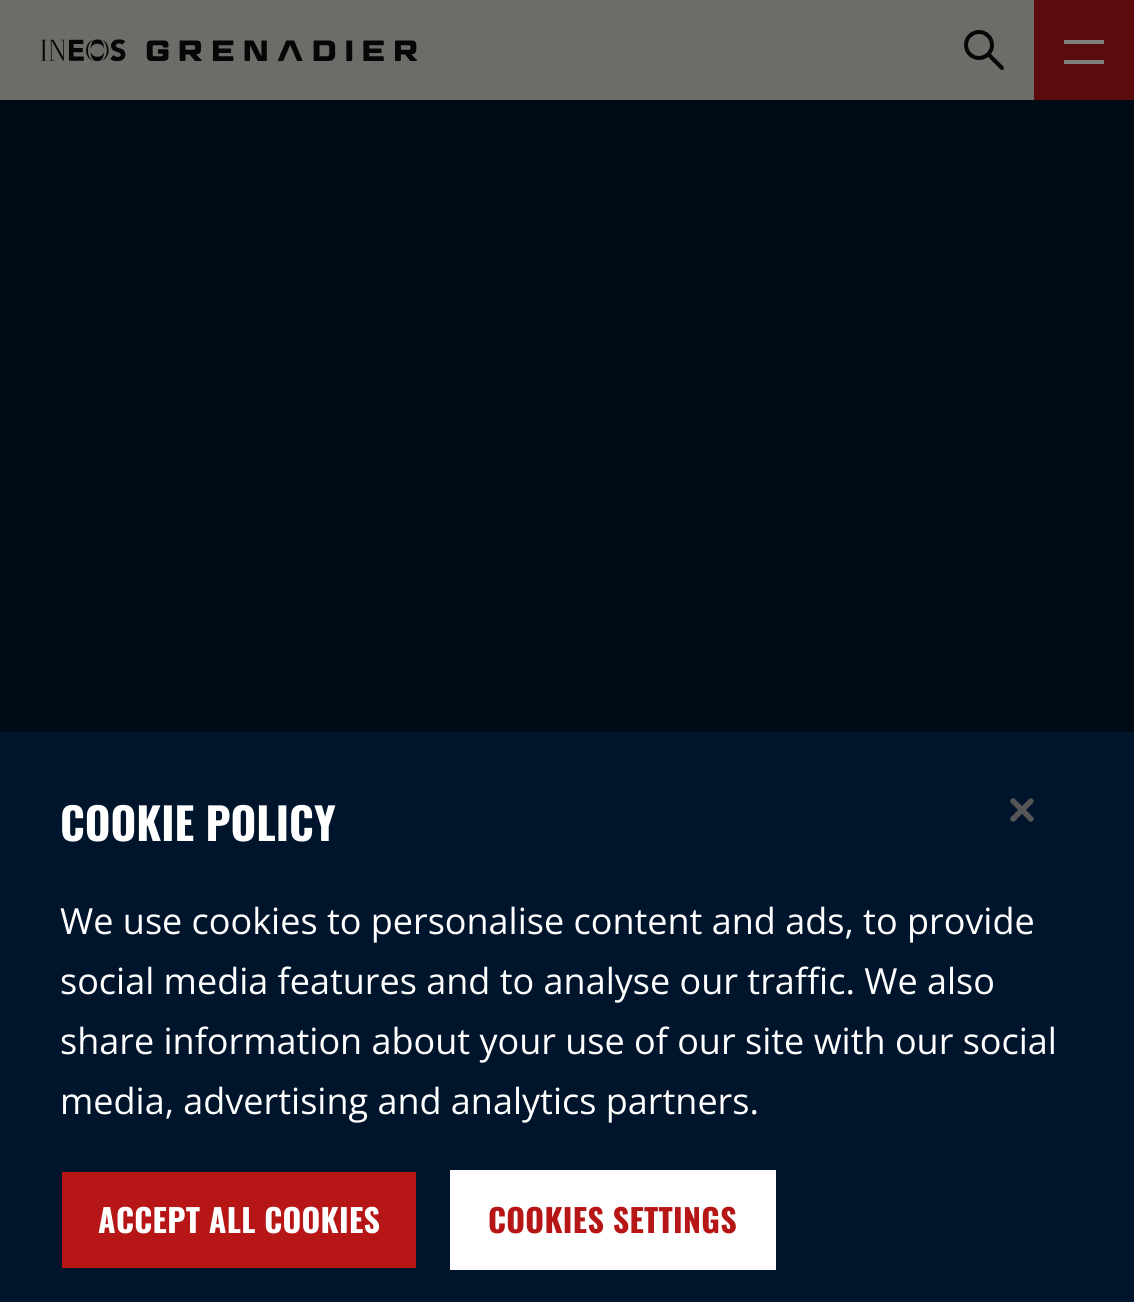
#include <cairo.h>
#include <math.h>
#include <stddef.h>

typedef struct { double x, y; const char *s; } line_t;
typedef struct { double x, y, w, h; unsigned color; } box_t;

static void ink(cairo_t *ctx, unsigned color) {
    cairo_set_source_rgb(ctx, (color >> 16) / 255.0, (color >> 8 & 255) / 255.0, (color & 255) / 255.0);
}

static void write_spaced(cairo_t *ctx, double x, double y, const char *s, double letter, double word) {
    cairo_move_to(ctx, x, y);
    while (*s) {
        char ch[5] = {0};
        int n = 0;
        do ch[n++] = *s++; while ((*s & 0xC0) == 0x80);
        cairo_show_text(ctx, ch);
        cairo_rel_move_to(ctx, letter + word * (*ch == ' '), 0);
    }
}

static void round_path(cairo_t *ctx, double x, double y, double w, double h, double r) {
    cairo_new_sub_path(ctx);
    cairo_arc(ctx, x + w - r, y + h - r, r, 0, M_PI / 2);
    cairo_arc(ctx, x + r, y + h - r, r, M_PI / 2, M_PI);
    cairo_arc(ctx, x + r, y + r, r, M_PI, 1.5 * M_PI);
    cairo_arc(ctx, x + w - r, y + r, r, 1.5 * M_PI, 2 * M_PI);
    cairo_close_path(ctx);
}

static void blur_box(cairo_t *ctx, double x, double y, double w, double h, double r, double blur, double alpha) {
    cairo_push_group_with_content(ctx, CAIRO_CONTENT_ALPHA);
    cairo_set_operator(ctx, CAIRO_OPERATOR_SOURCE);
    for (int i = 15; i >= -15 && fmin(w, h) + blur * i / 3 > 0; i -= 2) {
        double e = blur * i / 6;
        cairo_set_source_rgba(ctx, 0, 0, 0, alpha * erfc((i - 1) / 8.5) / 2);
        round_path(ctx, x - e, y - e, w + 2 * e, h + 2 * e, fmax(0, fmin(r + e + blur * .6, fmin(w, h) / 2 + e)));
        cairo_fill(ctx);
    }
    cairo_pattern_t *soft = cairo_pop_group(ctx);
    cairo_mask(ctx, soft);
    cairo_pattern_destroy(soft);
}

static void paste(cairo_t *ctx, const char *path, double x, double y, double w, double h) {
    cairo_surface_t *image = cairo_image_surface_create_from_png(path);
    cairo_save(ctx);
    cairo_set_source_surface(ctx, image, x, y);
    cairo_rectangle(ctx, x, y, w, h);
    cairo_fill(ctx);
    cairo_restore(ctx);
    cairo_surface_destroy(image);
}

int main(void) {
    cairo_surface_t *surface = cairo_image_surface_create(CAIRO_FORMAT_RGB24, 1134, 1302);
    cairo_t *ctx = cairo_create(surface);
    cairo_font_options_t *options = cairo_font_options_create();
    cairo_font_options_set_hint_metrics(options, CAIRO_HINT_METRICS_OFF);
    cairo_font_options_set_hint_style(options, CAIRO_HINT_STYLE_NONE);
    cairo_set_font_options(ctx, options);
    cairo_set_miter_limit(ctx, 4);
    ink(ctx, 0x6D6C68);
    cairo_paint(ctx);
    paste(ctx, "media/1.png", 41, 39, 376, 23);
    paste(ctx, "media/2.png", 964, 30, 40, 40);
    {
        static const box_t items[] = {
            {1034, 0, 100, 100, 0x5B0B0B},
            {1064, 40, 40, 4, 0x808080},
            {1064, 60, 40, 4, 0x808080},
            {0, 100, 1134, 632, 0x000B16},
        };
        for (size_t i = 0; i < sizeof items / sizeof *items; i++) {
            ink(ctx, items[i].color);
            cairo_rectangle(ctx, items[i].x, items[i].y, items[i].w, items[i].h);
            cairo_fill(ctx);
        }
    }
    ink(ctx, 0x000000);
    blur_box(ctx, 0, 732, 1134, 570, 0, 18, 0.2);
    ink(ctx, 0x00152C);
    cairo_rectangle(ctx, 0, 732, 1134, 570);
    cairo_fill(ctx);
    paste(ctx, "media/3.png", 1010, 798, 24, 24);
    cairo_select_font_face(ctx, "Oswald", CAIRO_FONT_SLANT_NORMAL, CAIRO_FONT_WEIGHT_BOLD);
    cairo_set_font_size(ctx, 44);
    ink(ctx, 0xFFFFFF);
    cairo_move_to(ctx, 60, 841);
    cairo_show_text(ctx, "COOKIE POLICY");
    cairo_select_font_face(ctx, "Open Sans", CAIRO_FONT_SLANT_NORMAL, CAIRO_FONT_WEIGHT_NORMAL);
    cairo_set_font_size(ctx, 36);
    {
        static const line_t items[] = {
            {60, 934, "We use cookies to personalise content and ads, to provide"},
            {60, 994, "social media features and to analyse our traffic. We also"},
            {60, 1054, "share information about your use of our site with our social"},
            {60, 1114, "media, advertising and analytics partners."},
        };
        for (size_t i = 0; i < sizeof items / sizeof *items; i++) {
            cairo_move_to(ctx, items[i].x, items[i].y);
            cairo_show_text(ctx, items[i].s);
        }
    }
    ink(ctx, 0xB61615);
    cairo_rectangle(ctx, 62, 1172, 354, 96);
    cairo_fill(ctx);
    cairo_select_font_face(ctx, "Oswald", CAIRO_FONT_SLANT_NORMAL, CAIRO_FONT_WEIGHT_BOLD);
    cairo_set_font_size(ctx, 32);
    ink(ctx, 0xFFFFFF);
    write_spaced(ctx, 98, 1233, "ACCEPT ALL COOKIES", 0.3, 0);
    cairo_rectangle(ctx, 450, 1170, 326, 100);
    cairo_fill(ctx);
    ink(ctx, 0xB61615);
    write_spaced(ctx, 488, 1233, "COOKIES SETTINGS", 0.3, 0);
    cairo_surface_write_to_png(surface, "image.png");
    cairo_font_options_destroy(options);
    cairo_destroy(ctx);
    cairo_surface_destroy(surface);
    return 0;
}
